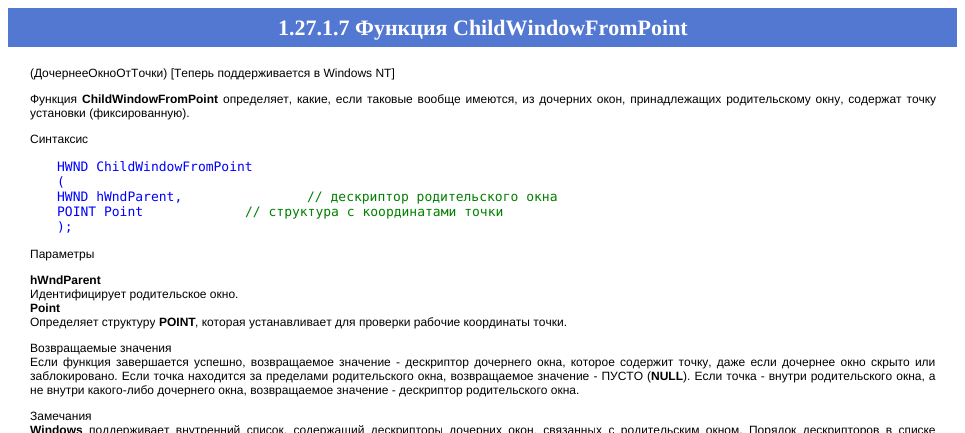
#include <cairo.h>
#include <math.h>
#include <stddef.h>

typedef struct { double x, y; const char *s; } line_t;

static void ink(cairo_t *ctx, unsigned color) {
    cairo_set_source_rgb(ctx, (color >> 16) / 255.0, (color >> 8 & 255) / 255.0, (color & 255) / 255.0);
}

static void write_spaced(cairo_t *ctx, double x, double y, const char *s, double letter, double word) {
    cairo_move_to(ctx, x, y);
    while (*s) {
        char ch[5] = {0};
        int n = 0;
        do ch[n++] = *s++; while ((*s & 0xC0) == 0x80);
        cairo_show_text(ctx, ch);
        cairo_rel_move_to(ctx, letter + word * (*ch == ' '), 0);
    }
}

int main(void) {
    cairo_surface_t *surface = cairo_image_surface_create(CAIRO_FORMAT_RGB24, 965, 433);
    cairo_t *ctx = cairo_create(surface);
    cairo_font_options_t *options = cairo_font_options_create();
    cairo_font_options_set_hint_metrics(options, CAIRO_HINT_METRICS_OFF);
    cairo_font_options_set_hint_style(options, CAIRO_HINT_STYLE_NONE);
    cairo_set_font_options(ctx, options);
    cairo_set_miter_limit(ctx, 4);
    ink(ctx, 0xFFFFFF);
    cairo_paint(ctx);
    ink(ctx, 0x5378D1);
    cairo_rectangle(ctx, 8, 8, 949, 39);
    cairo_fill(ctx);
    cairo_select_font_face(ctx, "Liberation Serif", CAIRO_FONT_SLANT_NORMAL, CAIRO_FONT_WEIGHT_BOLD);
    cairo_set_font_size(ctx, 22);
    ink(ctx, 0xFFFFFF);
    cairo_move_to(ctx, 278, 35);
    cairo_show_text(ctx, "1.27.1.7 Функция ChildWindowFromPoint");
    cairo_select_font_face(ctx, "Liberation Sans", CAIRO_FONT_SLANT_NORMAL, CAIRO_FONT_WEIGHT_NORMAL);
    cairo_set_font_size(ctx, 12);
    ink(ctx, 0x000000);
    cairo_move_to(ctx, 30, 77);
    cairo_show_text(ctx, "(ДочернееОкноОтТочки) [Теперь поддерживается в Windows NT]");
    cairo_move_to(ctx, 30, 103);
    cairo_show_text(ctx, "Функция");
    cairo_select_font_face(ctx, "Liberation Sans", CAIRO_FONT_SLANT_NORMAL, CAIRO_FONT_WEIGHT_BOLD);
    cairo_move_to(ctx, 82, 103);
    cairo_show_text(ctx, "ChildWindowFromPoint");
    cairo_select_font_face(ctx, "Liberation Sans", CAIRO_FONT_SLANT_NORMAL, CAIRO_FONT_WEIGHT_NORMAL);
    write_spaced(ctx, 223, 103, "определяет, какие, если таковые вообще имеются, из дочерних окон, принадлежащих родительскому окну, содержат точку", 0, 1.5);
    cairo_move_to(ctx, 30, 117);
    cairo_show_text(ctx, "установки (фиксированную).");
    cairo_move_to(ctx, 30, 143);
    cairo_show_text(ctx, "Синтаксис");
    cairo_select_font_face(ctx, "DejaVu Sans Mono", CAIRO_FONT_SLANT_NORMAL, CAIRO_FONT_WEIGHT_NORMAL);
    cairo_set_font_size(ctx, 13);
    ink(ctx, 0x0000FF);
    {
        static const line_t items[] = {
            {57, 171, "HWND ChildWindowFromPoint"},
            {57, 186, "("},
            {57, 201, "HWND hWndParent,"},
        };
        for (size_t i = 0; i < sizeof items / sizeof *items; i++) {
            cairo_move_to(ctx, items[i].x, items[i].y);
            cairo_show_text(ctx, items[i].s);
        }
    }
    ink(ctx, 0x008000);
    cairo_move_to(ctx, 307, 201);
    cairo_show_text(ctx, "// дескриптор родительского окна");
    ink(ctx, 0x0000FF);
    cairo_move_to(ctx, 57, 216);
    cairo_show_text(ctx, "POINT Point");
    ink(ctx, 0x008000);
    cairo_move_to(ctx, 245, 216);
    cairo_show_text(ctx, "// структура с координатами точки");
    ink(ctx, 0x0000FF);
    cairo_move_to(ctx, 57, 231);
    cairo_show_text(ctx, ");");
    cairo_select_font_face(ctx, "Liberation Sans", CAIRO_FONT_SLANT_NORMAL, CAIRO_FONT_WEIGHT_NORMAL);
    cairo_set_font_size(ctx, 12);
    ink(ctx, 0x000000);
    cairo_move_to(ctx, 30, 258);
    cairo_show_text(ctx, "Параметры");
    cairo_select_font_face(ctx, "Liberation Sans", CAIRO_FONT_SLANT_NORMAL, CAIRO_FONT_WEIGHT_BOLD);
    cairo_move_to(ctx, 30, 284);
    cairo_show_text(ctx, "hWndParent");
    cairo_select_font_face(ctx, "Liberation Sans", CAIRO_FONT_SLANT_NORMAL, CAIRO_FONT_WEIGHT_NORMAL);
    cairo_move_to(ctx, 30, 298);
    cairo_show_text(ctx, "Идентифицирует родительское окно.");
    cairo_select_font_face(ctx, "Liberation Sans", CAIRO_FONT_SLANT_NORMAL, CAIRO_FONT_WEIGHT_BOLD);
    cairo_move_to(ctx, 30, 312);
    cairo_show_text(ctx, "Point");
    cairo_select_font_face(ctx, "Liberation Sans", CAIRO_FONT_SLANT_NORMAL, CAIRO_FONT_WEIGHT_NORMAL);
    cairo_move_to(ctx, 30, 326);
    cairo_show_text(ctx, "Определяет структуру");
    cairo_select_font_face(ctx, "Liberation Sans", CAIRO_FONT_SLANT_NORMAL, CAIRO_FONT_WEIGHT_BOLD);
    cairo_move_to(ctx, 159, 326);
    cairo_show_text(ctx, "POINT");
    cairo_select_font_face(ctx, "Liberation Sans", CAIRO_FONT_SLANT_NORMAL, CAIRO_FONT_WEIGHT_NORMAL);
    cairo_move_to(ctx, 195, 326);
    cairo_show_text(ctx, ", которая устанавливает для проверки рабочие координаты точки.");
    cairo_move_to(ctx, 30, 352);
    cairo_show_text(ctx, "Возвращаемые значения");
    write_spaced(ctx, 30, 366, "Если функция завершается успешно, возвращаемое значение - дескриптор дочернего окна, которое содержит точку, даже если дочернее окно скрыто или", 0, 1.9);
    write_spaced(ctx, 30, 380, "заблокировано. Если точка находится за пределами родительского окна, возвращаемое значение - ПУСТО (", 0, 0.75);
    cairo_select_font_face(ctx, "Liberation Sans", CAIRO_FONT_SLANT_NORMAL, CAIRO_FONT_WEIGHT_BOLD);
    cairo_move_to(ctx, 651, 380);
    cairo_show_text(ctx, "NULL");
    cairo_select_font_face(ctx, "Liberation Sans", CAIRO_FONT_SLANT_NORMAL, CAIRO_FONT_WEIGHT_NORMAL);
    write_spaced(ctx, 683, 380, "). Если точка - внутри родительского окна, а", 0, 0.75);
    cairo_move_to(ctx, 30, 394);
    cairo_show_text(ctx, "не внутри какого-либо дочернего окна, возвращаемое значение - дескриптор родительского окна.");
    cairo_move_to(ctx, 30, 420);
    cairo_show_text(ctx, "Замечания");
    cairo_select_font_face(ctx, "Liberation Sans", CAIRO_FONT_SLANT_NORMAL, CAIRO_FONT_WEIGHT_BOLD);
    cairo_move_to(ctx, 30, 434);
    cairo_show_text(ctx, "Windows");
    cairo_select_font_face(ctx, "Liberation Sans", CAIRO_FONT_SLANT_NORMAL, CAIRO_FONT_WEIGHT_NORMAL);
    write_spaced(ctx, 89, 434, "поддерживает внутренний список, содержащий дескрипторы дочерних окон, связанных с родительским окном. Порядок дескрипторов в списке", 0, 3);
    cairo_surface_write_to_png(surface, "image.png");
    cairo_font_options_destroy(options);
    cairo_destroy(ctx);
    cairo_surface_destroy(surface);
    return 0;
}
